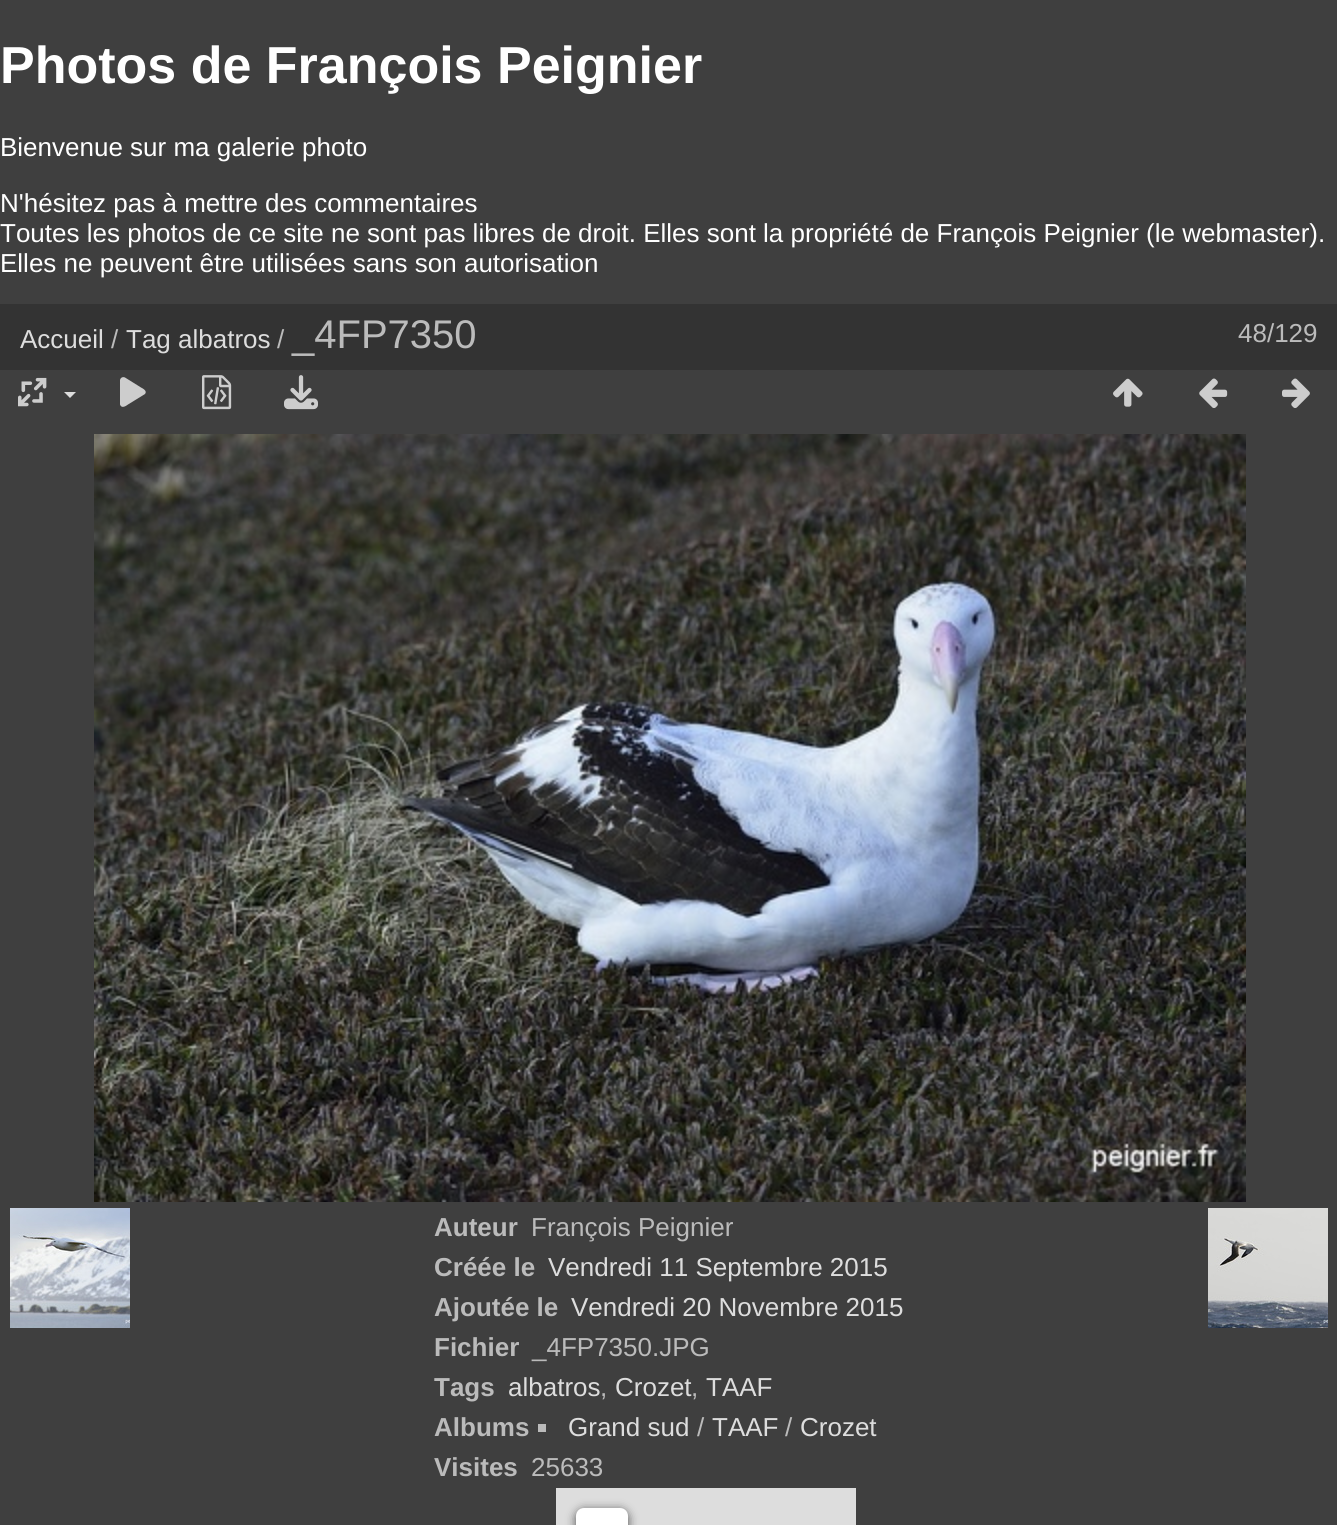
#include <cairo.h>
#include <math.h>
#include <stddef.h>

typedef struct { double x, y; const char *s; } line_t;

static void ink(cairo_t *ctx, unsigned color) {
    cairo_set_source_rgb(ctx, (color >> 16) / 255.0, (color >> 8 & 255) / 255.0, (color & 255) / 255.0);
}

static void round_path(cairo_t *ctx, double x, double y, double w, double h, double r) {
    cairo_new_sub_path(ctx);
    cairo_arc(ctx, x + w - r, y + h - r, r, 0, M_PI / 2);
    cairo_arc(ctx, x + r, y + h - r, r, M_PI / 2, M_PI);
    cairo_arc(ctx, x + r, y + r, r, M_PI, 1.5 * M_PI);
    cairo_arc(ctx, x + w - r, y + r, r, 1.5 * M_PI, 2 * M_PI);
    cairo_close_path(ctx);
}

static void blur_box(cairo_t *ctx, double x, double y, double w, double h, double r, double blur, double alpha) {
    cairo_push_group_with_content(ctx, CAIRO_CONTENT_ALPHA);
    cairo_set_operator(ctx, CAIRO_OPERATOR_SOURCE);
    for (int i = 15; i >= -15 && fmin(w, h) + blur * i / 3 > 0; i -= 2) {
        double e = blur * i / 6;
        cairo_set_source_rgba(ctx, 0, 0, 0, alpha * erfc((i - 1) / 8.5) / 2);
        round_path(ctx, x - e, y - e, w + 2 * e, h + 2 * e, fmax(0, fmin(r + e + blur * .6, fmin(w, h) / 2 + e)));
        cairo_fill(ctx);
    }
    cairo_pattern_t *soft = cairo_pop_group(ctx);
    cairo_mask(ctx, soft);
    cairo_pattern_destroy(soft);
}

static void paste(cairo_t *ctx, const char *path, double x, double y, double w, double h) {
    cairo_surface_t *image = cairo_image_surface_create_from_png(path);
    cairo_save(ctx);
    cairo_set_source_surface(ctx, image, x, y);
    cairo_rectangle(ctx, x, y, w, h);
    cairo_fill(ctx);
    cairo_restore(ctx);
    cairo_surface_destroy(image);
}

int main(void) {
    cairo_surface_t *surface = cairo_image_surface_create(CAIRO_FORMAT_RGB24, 1337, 1525);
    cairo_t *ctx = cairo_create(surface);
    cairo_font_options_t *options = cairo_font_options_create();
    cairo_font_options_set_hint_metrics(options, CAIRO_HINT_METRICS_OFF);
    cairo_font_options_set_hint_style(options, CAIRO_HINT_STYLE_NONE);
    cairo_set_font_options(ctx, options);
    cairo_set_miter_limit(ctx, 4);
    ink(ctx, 0x3F3F3F);
    cairo_paint(ctx);
    cairo_select_font_face(ctx, "Liberation Sans", CAIRO_FONT_SLANT_NORMAL, CAIRO_FONT_WEIGHT_BOLD);
    cairo_set_font_size(ctx, 52);
    ink(ctx, 0xFFFFFF);
    cairo_move_to(ctx, 0, 83);
    cairo_show_text(ctx, "Photos de François Peignier");
    cairo_select_font_face(ctx, "Liberation Sans", CAIRO_FONT_SLANT_NORMAL, CAIRO_FONT_WEIGHT_NORMAL);
    cairo_set_font_size(ctx, 26);
    {
        static const line_t items[] = {
            {0, 156, "Bienvenue sur ma galerie photo"},
            {0, 212, "N'hésitez pas à mettre des commentaires"},
            {0, 242, "Toutes les photos de ce site ne sont pas libres de droit. Elles sont la propriété de François Peignier (le webmaster)."},
            {0, 272, "Elles ne peuvent être utilisées sans son autorisation"},
        };
        for (size_t i = 0; i < sizeof items / sizeof *items; i++) {
            cairo_move_to(ctx, items[i].x, items[i].y);
            cairo_show_text(ctx, items[i].s);
        }
    }
    ink(ctx, 0x333333);
    cairo_rectangle(ctx, 0, 304, 1337, 66);
    cairo_fill(ctx);
    ink(ctx, 0xDDDDDD);
    cairo_move_to(ctx, 20, 348);
    cairo_show_text(ctx, "Accueil");
    ink(ctx, 0xBBBBBB);
    cairo_move_to(ctx, 111, 348);
    cairo_show_text(ctx, "/");
    ink(ctx, 0xDDDDDD);
    cairo_move_to(ctx, 126, 348);
    cairo_show_text(ctx, "Tag albatros");
    ink(ctx, 0xBBBBBB);
    cairo_move_to(ctx, 277, 348);
    cairo_show_text(ctx, "/");
    cairo_set_font_size(ctx, 40);
    cairo_move_to(ctx, 292, 348);
    cairo_show_text(ctx, "_4FP7350");
    cairo_set_font_size(ctx, 26);
    cairo_move_to(ctx, 1238, 342);
    cairo_show_text(ctx, "48/129");
    paste(ctx, "media/1.png", 18, 377, 29, 30);
    ink(ctx, 0xDDDDDD);
    cairo_new_path(ctx);
    cairo_move_to(ctx, 64, 392);
    cairo_line_to(ctx, 76, 392);
    cairo_line_to(ctx, 70, 398);
    cairo_close_path(ctx);
    cairo_fill(ctx);
    ink(ctx, 0xCDCDCD);
    cairo_new_path(ctx);
    cairo_move_to(ctx, 125, 377.5);
    cairo_curve_to(ctx, 123, 376.5, 120.5, 377.5, 120, 380);
    cairo_line_to(ctx, 120, 404.5);
    cairo_curve_to(ctx, 121.5, 409, 126, 406, 128, 404.5);
    cairo_line_to(ctx, 145, 394);
    cairo_curve_to(ctx, 147.5, 391, 143, 388.5, 141, 387.5);
    cairo_close_path(ctx);
    cairo_fill(ctx);
    paste(ctx, "media/2.png", 202, 375, 30, 35);
    paste(ctx, "media/3.png", 284, 375, 34, 35);
    paste(ctx, "media/4.png", 1113, 378, 30, 29);
    paste(ctx, "media/5.png", 1199, 378, 29, 30);
    paste(ctx, "media/6.png", 1282, 378, 28, 30);
    paste(ctx, "media/7.png", 94, 434, 1152, 768);
    paste(ctx, "media/8.png", 10, 1208, 120, 120);
    paste(ctx, "media/9.png", 1208, 1208, 120, 120);
    cairo_select_font_face(ctx, "Liberation Sans", CAIRO_FONT_SLANT_NORMAL, CAIRO_FONT_WEIGHT_BOLD);
    ink(ctx, 0xBBBBBB);
    cairo_move_to(ctx, 434, 1236);
    cairo_show_text(ctx, "Auteur");
    cairo_select_font_face(ctx, "Liberation Sans", CAIRO_FONT_SLANT_NORMAL, CAIRO_FONT_WEIGHT_NORMAL);
    cairo_move_to(ctx, 531, 1236);
    cairo_show_text(ctx, "François Peignier");
    cairo_select_font_face(ctx, "Liberation Sans", CAIRO_FONT_SLANT_NORMAL, CAIRO_FONT_WEIGHT_BOLD);
    cairo_move_to(ctx, 434, 1276);
    cairo_show_text(ctx, "Créée le");
    cairo_select_font_face(ctx, "Liberation Sans", CAIRO_FONT_SLANT_NORMAL, CAIRO_FONT_WEIGHT_NORMAL);
    ink(ctx, 0xDDDDDD);
    cairo_move_to(ctx, 548, 1276);
    cairo_show_text(ctx, "Vendredi 11 Septembre 2015");
    cairo_select_font_face(ctx, "Liberation Sans", CAIRO_FONT_SLANT_NORMAL, CAIRO_FONT_WEIGHT_BOLD);
    ink(ctx, 0xBBBBBB);
    cairo_move_to(ctx, 434, 1316);
    cairo_show_text(ctx, "Ajoutée le");
    cairo_select_font_face(ctx, "Liberation Sans", CAIRO_FONT_SLANT_NORMAL, CAIRO_FONT_WEIGHT_NORMAL);
    ink(ctx, 0xDDDDDD);
    cairo_move_to(ctx, 571, 1316);
    cairo_show_text(ctx, "Vendredi 20 Novembre 2015");
    cairo_select_font_face(ctx, "Liberation Sans", CAIRO_FONT_SLANT_NORMAL, CAIRO_FONT_WEIGHT_BOLD);
    ink(ctx, 0xBBBBBB);
    cairo_move_to(ctx, 434, 1356);
    cairo_show_text(ctx, "Fichier");
    cairo_select_font_face(ctx, "Liberation Sans", CAIRO_FONT_SLANT_NORMAL, CAIRO_FONT_WEIGHT_NORMAL);
    cairo_move_to(ctx, 532, 1356);
    cairo_show_text(ctx, "_4FP7350.JPG");
    cairo_select_font_face(ctx, "Liberation Sans", CAIRO_FONT_SLANT_NORMAL, CAIRO_FONT_WEIGHT_BOLD);
    cairo_move_to(ctx, 434, 1396);
    cairo_show_text(ctx, "Tags");
    cairo_select_font_face(ctx, "Liberation Sans", CAIRO_FONT_SLANT_NORMAL, CAIRO_FONT_WEIGHT_NORMAL);
    ink(ctx, 0xDDDDDD);
    cairo_move_to(ctx, 508, 1396);
    cairo_show_text(ctx, "albatros");
    ink(ctx, 0xBBBBBB);
    cairo_move_to(ctx, 600, 1396);
    cairo_show_text(ctx, ",");
    ink(ctx, 0xDDDDDD);
    cairo_move_to(ctx, 615, 1396);
    cairo_show_text(ctx, "Crozet");
    ink(ctx, 0xBBBBBB);
    cairo_move_to(ctx, 691, 1396);
    cairo_show_text(ctx, ",");
    ink(ctx, 0xDDDDDD);
    cairo_move_to(ctx, 706, 1396);
    cairo_show_text(ctx, "TAAF");
    cairo_select_font_face(ctx, "Liberation Sans", CAIRO_FONT_SLANT_NORMAL, CAIRO_FONT_WEIGHT_BOLD);
    ink(ctx, 0xBBBBBB);
    cairo_move_to(ctx, 434, 1436);
    cairo_show_text(ctx, "Albums");
    cairo_rectangle(ctx, 538, 1424, 8, 8);
    cairo_fill(ctx);
    cairo_select_font_face(ctx, "Liberation Sans", CAIRO_FONT_SLANT_NORMAL, CAIRO_FONT_WEIGHT_NORMAL);
    ink(ctx, 0xDDDDDD);
    cairo_move_to(ctx, 568, 1436);
    cairo_show_text(ctx, "Grand sud");
    ink(ctx, 0xBBBBBB);
    cairo_move_to(ctx, 697, 1436);
    cairo_show_text(ctx, "/");
    ink(ctx, 0xDDDDDD);
    cairo_move_to(ctx, 712, 1436);
    cairo_show_text(ctx, "TAAF");
    ink(ctx, 0xBBBBBB);
    cairo_move_to(ctx, 785, 1436);
    cairo_show_text(ctx, "/");
    ink(ctx, 0xDDDDDD);
    cairo_move_to(ctx, 800, 1436);
    cairo_show_text(ctx, "Crozet");
    cairo_select_font_face(ctx, "Liberation Sans", CAIRO_FONT_SLANT_NORMAL, CAIRO_FONT_WEIGHT_BOLD);
    ink(ctx, 0xBBBBBB);
    cairo_move_to(ctx, 434, 1476);
    cairo_show_text(ctx, "Visites");
    cairo_select_font_face(ctx, "Liberation Sans", CAIRO_FONT_SLANT_NORMAL, CAIRO_FONT_WEIGHT_NORMAL);
    cairo_move_to(ctx, 531, 1476);
    cairo_show_text(ctx, "25633");
    ink(ctx, 0xDDDDDD);
    cairo_rectangle(ctx, 556, 1488, 300, 37);
    cairo_fill(ctx);
    ink(ctx, 0x000000);
    blur_box(ctx, 576, 1510, 52, 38, 8, 5, 0.65);
    ink(ctx, 0xFFFFFF);
    cairo_new_path(ctx);
    cairo_move_to(ctx, 584, 1508);
    cairo_line_to(ctx, 620, 1508);
    cairo_curve_to(ctx, 624.5, 1508, 628, 1511.5, 628, 1516);
    cairo_line_to(ctx, 628, 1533);
    cairo_line_to(ctx, 576, 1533);
    cairo_line_to(ctx, 576, 1516);
    cairo_curve_to(ctx, 576, 1511.5, 579.5, 1508, 584, 1508);
    cairo_close_path(ctx);
    cairo_fill(ctx);
    cairo_surface_write_to_png(surface, "image.png");
    cairo_font_options_destroy(options);
    cairo_destroy(ctx);
    cairo_surface_destroy(surface);
    return 0;
}
